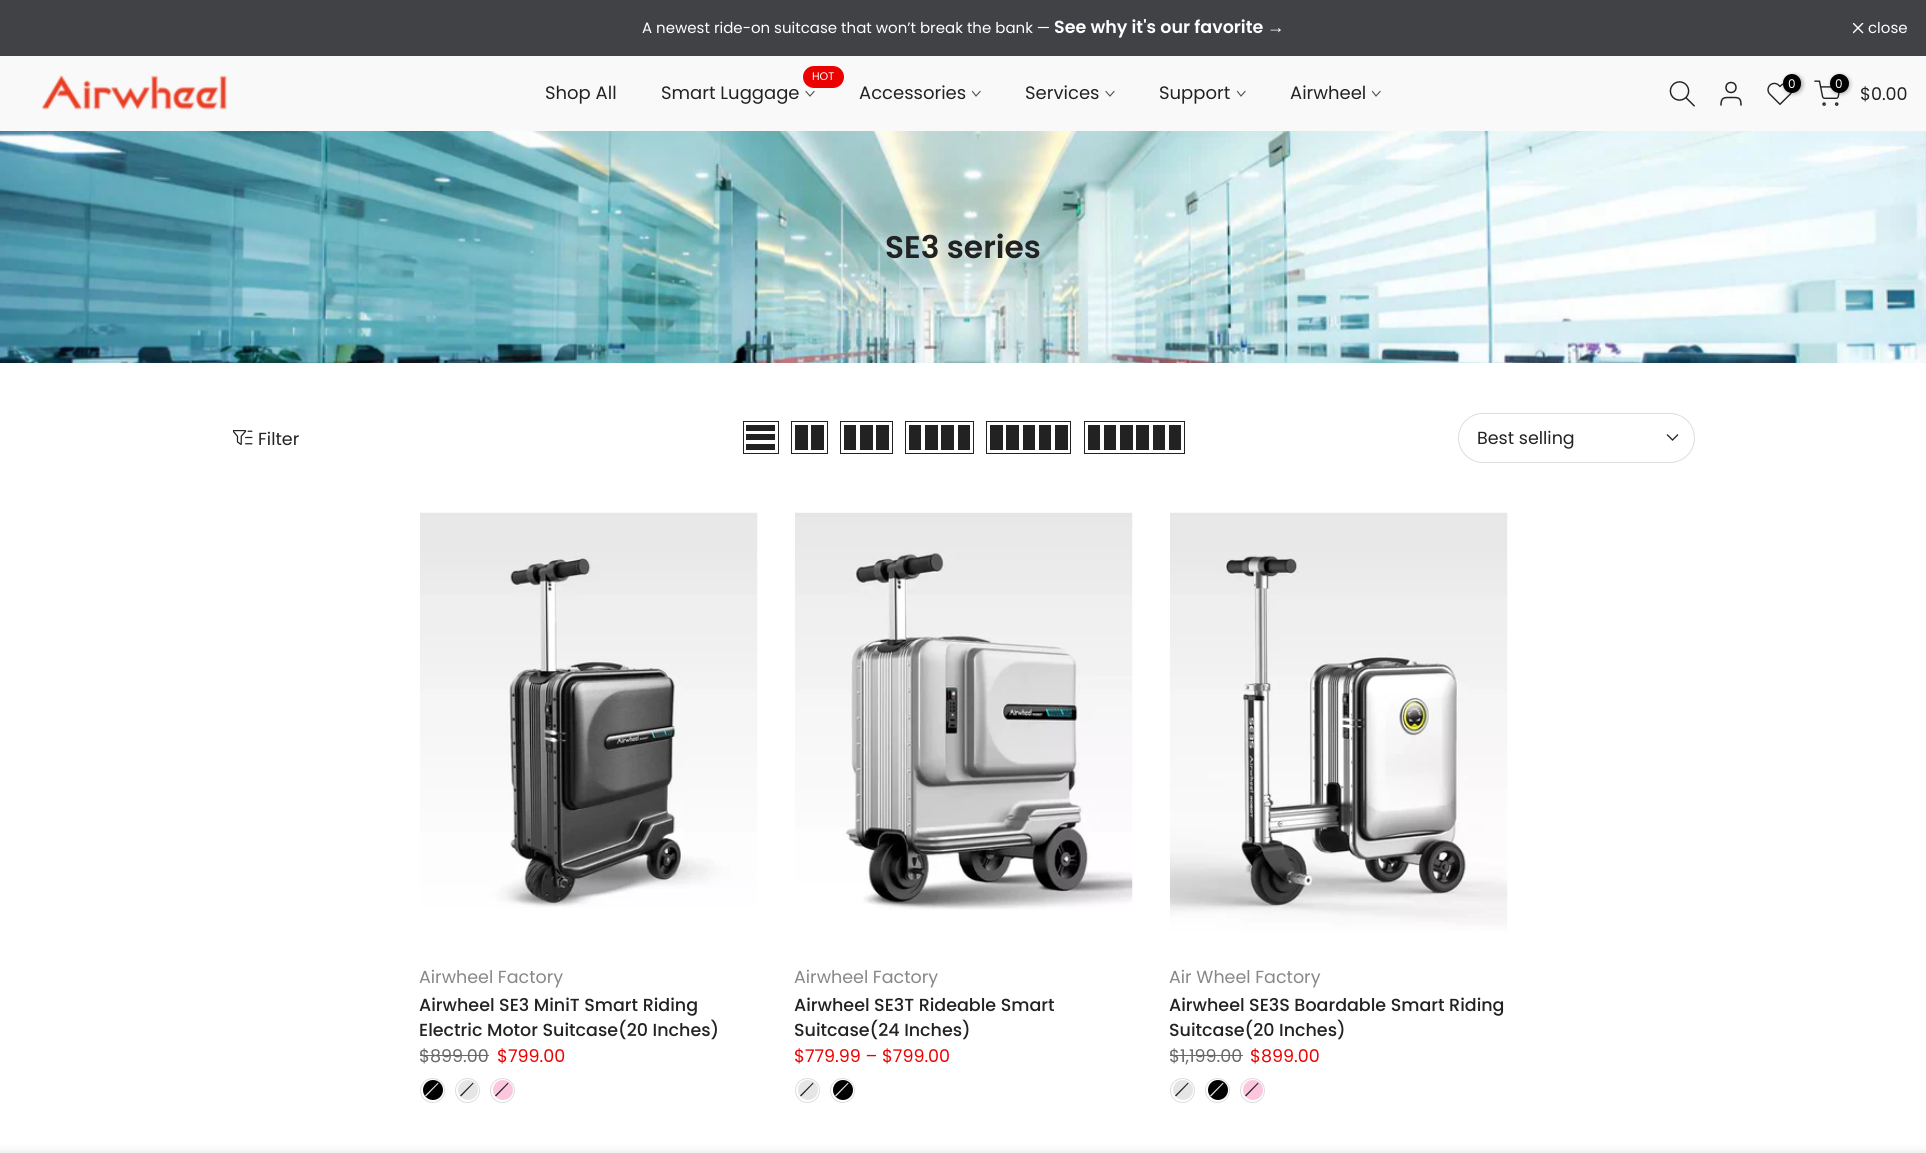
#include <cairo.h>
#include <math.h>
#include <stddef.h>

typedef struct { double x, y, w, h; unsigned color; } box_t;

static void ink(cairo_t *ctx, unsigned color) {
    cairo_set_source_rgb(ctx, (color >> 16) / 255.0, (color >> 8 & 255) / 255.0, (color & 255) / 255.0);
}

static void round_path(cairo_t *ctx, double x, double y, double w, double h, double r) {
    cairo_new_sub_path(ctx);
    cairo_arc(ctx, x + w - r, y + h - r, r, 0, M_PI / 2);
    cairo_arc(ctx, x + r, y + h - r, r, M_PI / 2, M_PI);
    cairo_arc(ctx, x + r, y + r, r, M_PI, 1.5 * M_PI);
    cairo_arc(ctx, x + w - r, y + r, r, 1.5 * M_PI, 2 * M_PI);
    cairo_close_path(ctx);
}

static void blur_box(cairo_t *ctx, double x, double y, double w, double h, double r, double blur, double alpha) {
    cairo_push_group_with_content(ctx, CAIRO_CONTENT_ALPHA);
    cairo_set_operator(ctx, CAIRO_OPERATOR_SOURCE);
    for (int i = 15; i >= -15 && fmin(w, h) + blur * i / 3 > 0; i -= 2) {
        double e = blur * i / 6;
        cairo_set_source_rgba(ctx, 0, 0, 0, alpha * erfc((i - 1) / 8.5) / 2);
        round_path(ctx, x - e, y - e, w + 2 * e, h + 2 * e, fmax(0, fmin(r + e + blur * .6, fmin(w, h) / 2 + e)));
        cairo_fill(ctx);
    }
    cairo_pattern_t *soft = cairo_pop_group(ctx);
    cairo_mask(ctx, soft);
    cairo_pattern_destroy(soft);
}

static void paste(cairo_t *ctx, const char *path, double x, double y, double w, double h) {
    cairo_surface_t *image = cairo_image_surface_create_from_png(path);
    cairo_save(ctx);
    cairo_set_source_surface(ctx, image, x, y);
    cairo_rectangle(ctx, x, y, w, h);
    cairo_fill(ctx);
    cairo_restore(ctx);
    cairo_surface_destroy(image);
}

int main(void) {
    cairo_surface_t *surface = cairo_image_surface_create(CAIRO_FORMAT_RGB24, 1926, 1153);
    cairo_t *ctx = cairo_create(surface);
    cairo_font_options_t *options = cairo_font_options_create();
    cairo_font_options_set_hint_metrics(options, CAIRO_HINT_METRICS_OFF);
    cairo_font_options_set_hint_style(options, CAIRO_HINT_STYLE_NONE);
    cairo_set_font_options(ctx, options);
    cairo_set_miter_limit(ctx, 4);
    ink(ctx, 0xFFFFFF);
    cairo_paint(ctx);
    ink(ctx, 0x414246);
    cairo_rectangle(ctx, 0, 0, 1926, 56);
    cairo_fill(ctx);
    cairo_select_font_face(ctx, "Poppins", CAIRO_FONT_SLANT_NORMAL, CAIRO_FONT_WEIGHT_NORMAL);
    cairo_set_font_size(ctx, 15);
    ink(ctx, 0xFFFFFF);
    cairo_move_to(ctx, 642, 33);
    cairo_show_text(ctx, "A newest ride-on suitcase that won’t break the bank —");
    cairo_select_font_face(ctx, "Poppins SemiBold", CAIRO_FONT_SLANT_NORMAL, CAIRO_FONT_WEIGHT_NORMAL);
    cairo_set_font_size(ctx, 17.5);
    cairo_move_to(ctx, 1054, 33);
    cairo_show_text(ctx, "See why it's our favorite");
    cairo_select_font_face(ctx, "Liberation Sans", CAIRO_FONT_SLANT_NORMAL, CAIRO_FONT_WEIGHT_BOLD);
    cairo_move_to(ctx, 1267, 33);
    cairo_show_text(ctx, "→");
    cairo_save(ctx);
    cairo_rectangle(ctx, 1853, 23, 11, 11);
    cairo_clip(ctx);
    cairo_new_path(ctx);
    cairo_move_to(ctx, 1863, 23);
    cairo_line_to(ctx, 1853, 33);
    cairo_move_to(ctx, 1863, 33);
    cairo_line_to(ctx, 1853, 23);
    cairo_set_line_width(ctx, 1.4);
    cairo_stroke(ctx);
    cairo_restore(ctx);
    cairo_select_font_face(ctx, "Poppins", CAIRO_FONT_SLANT_NORMAL, CAIRO_FONT_WEIGHT_NORMAL);
    cairo_set_font_size(ctx, 15);
    cairo_move_to(ctx, 1868, 33);
    cairo_show_text(ctx, "close");
    ink(ctx, 0xF9F9F9);
    cairo_rectangle(ctx, 0, 56, 1926, 75);
    cairo_fill(ctx);
    paste(ctx, "media/1.png", 42, 75, 185, 35);
    cairo_set_font_size(ctx, 18);
    ink(ctx, 0x222222);
    cairo_move_to(ctx, 545, 99);
    cairo_show_text(ctx, "Shop All");
    ink(ctx, 0xEC0101);
    round_path(ctx, 803, 66, 41, 22, 11);
    cairo_fill(ctx);
    cairo_set_font_size(ctx, 11);
    ink(ctx, 0xFFFFFF);
    cairo_move_to(ctx, 812, 80);
    cairo_show_text(ctx, "HOT");
    cairo_set_font_size(ctx, 18);
    ink(ctx, 0x222222);
    cairo_move_to(ctx, 661, 99);
    cairo_show_text(ctx, "Smart Luggage");
    cairo_new_path(ctx);
    cairo_move_to(ctx, 814, 91.5);
    cairo_line_to(ctx, 810, 96);
    cairo_line_to(ctx, 806, 91.5);
    ink(ctx, 0x4D4D4D);
    cairo_set_line_width(ctx, 1.1);
    cairo_set_line_cap(ctx, CAIRO_LINE_CAP_SQUARE);
    cairo_stroke(ctx);
    ink(ctx, 0x222222);
    cairo_move_to(ctx, 859, 99);
    cairo_show_text(ctx, "Accessories");
    cairo_new_path(ctx);
    cairo_move_to(ctx, 980, 91.5);
    cairo_line_to(ctx, 976, 96);
    cairo_line_to(ctx, 972.5, 91.5);
    ink(ctx, 0x4D4D4D);
    cairo_stroke(ctx);
    ink(ctx, 0x222222);
    cairo_move_to(ctx, 1025, 99);
    cairo_show_text(ctx, "Services");
    cairo_new_path(ctx);
    cairo_move_to(ctx, 1114, 91.5);
    cairo_line_to(ctx, 1110, 96);
    cairo_line_to(ctx, 1106, 91.5);
    ink(ctx, 0x4D4D4D);
    cairo_stroke(ctx);
    ink(ctx, 0x222222);
    cairo_move_to(ctx, 1159, 99);
    cairo_show_text(ctx, "Support");
    cairo_new_path(ctx);
    cairo_move_to(ctx, 1245, 91.5);
    cairo_line_to(ctx, 1241, 96);
    cairo_line_to(ctx, 1237.5, 91.5);
    ink(ctx, 0x4D4D4D);
    cairo_stroke(ctx);
    ink(ctx, 0x222222);
    cairo_move_to(ctx, 1290, 99);
    cairo_show_text(ctx, "Airwheel");
    cairo_new_path(ctx);
    cairo_move_to(ctx, 1380, 91.5);
    cairo_line_to(ctx, 1376, 96);
    cairo_line_to(ctx, 1372.5, 91.5);
    ink(ctx, 0x4D4D4D);
    cairo_stroke(ctx);
    paste(ctx, "media/2.png", 1669, 81, 26, 26);
    cairo_arc(ctx, 1731, 87.5, 5, 0, 2 * M_PI);
    ink(ctx, 0x222222);
    cairo_set_line_width(ctx, 1.5);
    cairo_set_line_cap(ctx, CAIRO_LINE_CAP_BUTT);
    cairo_stroke(ctx);
    cairo_new_path(ctx);
    cairo_move_to(ctx, 1741, 105);
    cairo_curve_to(ctx, 1741, 97, 1738, 97.5, 1731, 97.5);
    cairo_curve_to(ctx, 1724.5, 97.5, 1721, 97, 1721, 105);
    cairo_set_line_cap(ctx, CAIRO_LINE_CAP_ROUND);
    cairo_set_line_join(ctx, CAIRO_LINE_JOIN_ROUND);
    cairo_stroke(ctx);
    paste(ctx, "media/3.png", 1767, 82, 26, 23);
    ink(ctx, 0x000000);
    blur_box(ctx, 1784, 75, 19, 19, 9.5, 2, 0.3);
    ink(ctx, 0x000000);
    round_path(ctx, 1783, 74, 18, 19, 9);
    cairo_fill(ctx);
    cairo_set_font_size(ctx, 12);
    ink(ctx, 0xFFFFFF);
    cairo_move_to(ctx, 1788, 88);
    cairo_show_text(ctx, "0");
    paste(ctx, "media/4.png", 1814, 80, 26, 26);
    ink(ctx, 0x000000);
    blur_box(ctx, 1831, 75, 19, 19, 9.5, 2, 0.3);
    ink(ctx, 0x000000);
    cairo_arc(ctx, 1839.5, 83.5, 9.5, 0, 2 * M_PI);
    cairo_fill(ctx);
    ink(ctx, 0xFFFFFF);
    cairo_move_to(ctx, 1835, 88);
    cairo_show_text(ctx, "0");
    cairo_set_font_size(ctx, 17.5);
    ink(ctx, 0x222222);
    cairo_move_to(ctx, 1860, 100);
    cairo_show_text(ctx, "$0.00");
    paste(ctx, "media/5.png", 0, 131, 1926, 232);
    cairo_select_font_face(ctx, "Poppins SemiBold", CAIRO_FONT_SLANT_NORMAL, CAIRO_FONT_WEIGHT_NORMAL);
    cairo_set_font_size(ctx, 31.25);
    cairo_move_to(ctx, 885, 258);
    cairo_show_text(ctx, "SE3 series");
    paste(ctx, "media/6.png", 233, 430, 20, 15);
    cairo_select_font_face(ctx, "Poppins", CAIRO_FONT_SLANT_NORMAL, CAIRO_FONT_WEIGHT_NORMAL);
    cairo_set_font_size(ctx, 17.5);
    cairo_move_to(ctx, 258, 445);
    cairo_show_text(ctx, "Filter");
    cairo_rectangle(ctx, 743.5, 421.5, 35, 32);
    cairo_set_line_width(ctx, 1);
    cairo_set_line_cap(ctx, CAIRO_LINE_CAP_BUTT);
    cairo_set_line_join(ctx, CAIRO_LINE_JOIN_MITER);
    cairo_stroke(ctx);
    {
        static const box_t items[] = {
            {746, 444, 29, 6, 0x222222},
            {746, 434, 29, 6, 0x222222},
            {746, 425, 29, 6, 0x222222},
        };
        for (size_t i = 0; i < sizeof items / sizeof *items; i++) {
            ink(ctx, items[i].color);
            cairo_rectangle(ctx, items[i].x, items[i].y, items[i].w, items[i].h);
            cairo_fill(ctx);
        }
    }
    cairo_rectangle(ctx, 791.5, 421.5, 36, 32);
    cairo_stroke(ctx);
    cairo_rectangle(ctx, 811, 425, 13, 25);
    cairo_fill(ctx);
    cairo_rectangle(ctx, 795, 425, 13, 25);
    cairo_fill(ctx);
    cairo_rectangle(ctx, 840.5, 421.5, 52, 32);
    cairo_stroke(ctx);
    {
        static const box_t items[] = {
            {876, 425, 13, 25, 0x222222},
            {860, 425, 13, 25, 0x222222},
            {844, 425, 12, 25, 0x222222},
        };
        for (size_t i = 0; i < sizeof items / sizeof *items; i++) {
            ink(ctx, items[i].color);
            cairo_rectangle(ctx, items[i].x, items[i].y, items[i].w, items[i].h);
            cairo_fill(ctx);
        }
    }
    cairo_rectangle(ctx, 905.5, 421.5, 68, 32);
    cairo_stroke(ctx);
    {
        static const box_t items[] = {
            {958, 425, 12, 25, 0x222222},
            {941, 425, 13, 25, 0x222222},
            {925, 425, 13, 25, 0x222222},
            {909, 425, 12, 25, 0x222222},
        };
        for (size_t i = 0; i < sizeof items / sizeof *items; i++) {
            ink(ctx, items[i].color);
            cairo_rectangle(ctx, items[i].x, items[i].y, items[i].w, items[i].h);
            cairo_fill(ctx);
        }
    }
    cairo_rectangle(ctx, 986.5, 421.5, 84, 32);
    cairo_stroke(ctx);
    {
        static const box_t items[] = {
            {1055, 425, 13, 25, 0x222222},
            {1039, 425, 12, 25, 0x222222},
            {1023, 425, 12, 25, 0x222222},
            {1006, 425, 13, 25, 0x222222},
            {990, 425, 13, 25, 0x222222},
        };
        for (size_t i = 0; i < sizeof items / sizeof *items; i++) {
            ink(ctx, items[i].color);
            cairo_rectangle(ctx, items[i].x, items[i].y, items[i].w, items[i].h);
            cairo_fill(ctx);
        }
    }
    cairo_rectangle(ctx, 1084.5, 421.5, 100, 32);
    cairo_stroke(ctx);
    {
        static const box_t items[] = {
            {1169, 425, 12, 25, 0x222222},
            {1153, 425, 12, 25, 0x222222},
            {1136, 425, 13, 25, 0x222222},
            {1120, 425, 13, 25, 0x222222},
            {1104, 425, 12, 25, 0x222222},
            {1088, 425, 12, 25, 0x222222},
        };
        for (size_t i = 0; i < sizeof items / sizeof *items; i++) {
            ink(ctx, items[i].color);
            cairo_rectangle(ctx, items[i].x, items[i].y, items[i].w, items[i].h);
            cairo_fill(ctx);
        }
    }
    round_path(ctx, 1458.5, 413.5, 236, 49, 24.5);
    ink(ctx, 0xDDDDDD);
    cairo_stroke(ctx);
    ink(ctx, 0x222222);
    cairo_move_to(ctx, 1477, 444);
    cairo_show_text(ctx, "Best selling");
    cairo_new_path(ctx);
    cairo_move_to(ctx, 1677.5, 435);
    cairo_line_to(ctx, 1672.5, 440);
    cairo_line_to(ctx, 1667.5, 435);
    cairo_set_line_width(ctx, 1.3);
    cairo_set_line_cap(ctx, CAIRO_LINE_CAP_SQUARE);
    cairo_stroke(ctx);
    paste(ctx, "media/7.png", 420, 512, 338, 396);
    ink(ctx, 0x878787);
    cairo_move_to(ctx, 419, 983);
    cairo_show_text(ctx, "Airwheel Factory");
    cairo_select_font_face(ctx, "Poppins Medium", CAIRO_FONT_SLANT_NORMAL, CAIRO_FONT_WEIGHT_NORMAL);
    ink(ctx, 0x222222);
    cairo_move_to(ctx, 419, 1011);
    cairo_show_text(ctx, "Airwheel SE3 MiniT Smart Riding");
    cairo_move_to(ctx, 419, 1036);
    cairo_show_text(ctx, "Electric Motor Suitcase(20 Inches)");
    cairo_select_font_face(ctx, "Poppins", CAIRO_FONT_SLANT_NORMAL, CAIRO_FONT_WEIGHT_NORMAL);
    ink(ctx, 0x696969);
    cairo_move_to(ctx, 419, 1062);
    cairo_show_text(ctx, "$899.00");
    cairo_rectangle(ctx, 420, 1055, 69, 1);
    cairo_fill(ctx);
    ink(ctx, 0xEC0101);
    cairo_move_to(ctx, 497, 1062);
    cairo_show_text(ctx, "$799.00");
    cairo_new_path(ctx);
    cairo_arc(ctx, 432.5, 1090.5, 12, 0, 2 * M_PI);
    ink(ctx, 0xDDDDDD);
    cairo_set_line_width(ctx, 1);
    cairo_set_line_cap(ctx, CAIRO_LINE_CAP_BUTT);
    cairo_stroke(ctx);
    ink(ctx, 0x000000);
    cairo_arc(ctx, 433, 1090, 10, 0, 2 * M_PI);
    cairo_fill(ctx);
    ink(ctx, 0xDDDDDD);
    cairo_new_path(ctx);
    cairo_move_to(ctx, 438.5, 1083.5);
    cairo_line_to(ctx, 426, 1096.5);
    cairo_line_to(ctx, 425, 1095.5);
    cairo_line_to(ctx, 438, 1082.5);
    cairo_close_path(ctx);
    cairo_fill(ctx);
    cairo_arc(ctx, 467.5, 1090.5, 12, 0, 2 * M_PI);
    cairo_stroke(ctx);
    ink(ctx, 0xE5E5E5);
    cairo_arc(ctx, 468, 1090, 10, 0, 2 * M_PI);
    cairo_fill(ctx);
    cairo_arc(ctx, 502.5, 1090.5, 12, 0, 2 * M_PI);
    ink(ctx, 0xDDDDDD);
    cairo_stroke(ctx);
    ink(ctx, 0xFCC6DE);
    cairo_arc(ctx, 503, 1090, 10, 0, 2 * M_PI);
    cairo_fill(ctx);
    ink(ctx, 0x222222);
    cairo_new_path(ctx);
    cairo_move_to(ctx, 473.5, 1083.5);
    cairo_line_to(ctx, 461, 1096.5);
    cairo_line_to(ctx, 460, 1095.5);
    cairo_line_to(ctx, 473, 1082.5);
    cairo_close_path(ctx);
    cairo_move_to(ctx, 508.5, 1083.5);
    cairo_line_to(ctx, 496, 1096.5);
    cairo_line_to(ctx, 495, 1095.5);
    cairo_line_to(ctx, 508, 1082.5);
    cairo_close_path(ctx);
    cairo_fill(ctx);
    paste(ctx, "media/8.png", 795, 512, 338, 398);
    ink(ctx, 0x878787);
    cairo_move_to(ctx, 794, 983);
    cairo_show_text(ctx, "Airwheel Factory");
    cairo_select_font_face(ctx, "Poppins Medium", CAIRO_FONT_SLANT_NORMAL, CAIRO_FONT_WEIGHT_NORMAL);
    ink(ctx, 0x222222);
    cairo_move_to(ctx, 794, 1011);
    cairo_show_text(ctx, "Airwheel SE3T Rideable Smart");
    cairo_move_to(ctx, 794, 1036);
    cairo_show_text(ctx, "Suitcase(24 Inches)");
    cairo_select_font_face(ctx, "Poppins", CAIRO_FONT_SLANT_NORMAL, CAIRO_FONT_WEIGHT_NORMAL);
    ink(ctx, 0xEC0101);
    cairo_move_to(ctx, 794, 1062);
    cairo_show_text(ctx, "$779.99 – $799.00");
    cairo_new_path(ctx);
    cairo_arc(ctx, 807.5, 1090.5, 12, 0, 2 * M_PI);
    ink(ctx, 0xDDDDDD);
    cairo_stroke(ctx);
    ink(ctx, 0xE5E5E5);
    cairo_arc(ctx, 808, 1090, 10, 0, 2 * M_PI);
    cairo_fill(ctx);
    ink(ctx, 0x222222);
    cairo_new_path(ctx);
    cairo_move_to(ctx, 813.5, 1083.5);
    cairo_line_to(ctx, 801, 1096.5);
    cairo_line_to(ctx, 800, 1095.5);
    cairo_line_to(ctx, 813, 1082.5);
    cairo_close_path(ctx);
    cairo_fill(ctx);
    cairo_arc(ctx, 842.5, 1090.5, 12, 0, 2 * M_PI);
    ink(ctx, 0xDDDDDD);
    cairo_stroke(ctx);
    ink(ctx, 0x000000);
    cairo_arc(ctx, 843, 1090, 10, 0, 2 * M_PI);
    cairo_fill(ctx);
    ink(ctx, 0xDDDDDD);
    cairo_new_path(ctx);
    cairo_move_to(ctx, 848.5, 1083.5);
    cairo_line_to(ctx, 836, 1096.5);
    cairo_line_to(ctx, 835, 1095.5);
    cairo_line_to(ctx, 848, 1082.5);
    cairo_close_path(ctx);
    cairo_fill(ctx);
    paste(ctx, "media/9.png", 1170, 512, 338, 419);
    ink(ctx, 0x878787);
    cairo_move_to(ctx, 1169, 983);
    cairo_show_text(ctx, "Air Wheel Factory");
    cairo_select_font_face(ctx, "Poppins Medium", CAIRO_FONT_SLANT_NORMAL, CAIRO_FONT_WEIGHT_NORMAL);
    ink(ctx, 0x222222);
    cairo_move_to(ctx, 1169, 1011);
    cairo_show_text(ctx, "Airwheel SE3S Boardable Smart Riding");
    cairo_move_to(ctx, 1169, 1036);
    cairo_show_text(ctx, "Suitcase(20 Inches)");
    cairo_select_font_face(ctx, "Poppins", CAIRO_FONT_SLANT_NORMAL, CAIRO_FONT_WEIGHT_NORMAL);
    ink(ctx, 0x696969);
    cairo_move_to(ctx, 1169, 1062);
    cairo_show_text(ctx, "$1,199.00");
    cairo_rectangle(ctx, 1170, 1055, 73, 1);
    cairo_fill(ctx);
    ink(ctx, 0xEC0101);
    cairo_move_to(ctx, 1250, 1062);
    cairo_show_text(ctx, "$899.00");
    cairo_new_path(ctx);
    cairo_arc(ctx, 1182.5, 1090.5, 12, 0, 2 * M_PI);
    ink(ctx, 0xDDDDDD);
    cairo_stroke(ctx);
    ink(ctx, 0xE5E5E5);
    cairo_arc(ctx, 1183, 1090, 10, 0, 2 * M_PI);
    cairo_fill(ctx);
    ink(ctx, 0x222222);
    cairo_new_path(ctx);
    cairo_move_to(ctx, 1188.5, 1083.5);
    cairo_line_to(ctx, 1176, 1096.5);
    cairo_line_to(ctx, 1175, 1095.5);
    cairo_line_to(ctx, 1188, 1082.5);
    cairo_close_path(ctx);
    cairo_fill(ctx);
    cairo_arc(ctx, 1217.5, 1090.5, 12, 0, 2 * M_PI);
    ink(ctx, 0xDDDDDD);
    cairo_stroke(ctx);
    ink(ctx, 0x000000);
    cairo_arc(ctx, 1218, 1090, 10, 0, 2 * M_PI);
    cairo_fill(ctx);
    ink(ctx, 0xDDDDDD);
    cairo_new_path(ctx);
    cairo_move_to(ctx, 1223.5, 1083.5);
    cairo_line_to(ctx, 1211, 1096.5);
    cairo_line_to(ctx, 1210, 1095.5);
    cairo_line_to(ctx, 1223, 1082.5);
    cairo_close_path(ctx);
    cairo_fill(ctx);
    cairo_arc(ctx, 1252.5, 1090.5, 12, 0, 2 * M_PI);
    cairo_stroke(ctx);
    ink(ctx, 0xFCC6DE);
    cairo_arc(ctx, 1253, 1090, 10, 0, 2 * M_PI);
    cairo_fill(ctx);
    ink(ctx, 0x222222);
    cairo_new_path(ctx);
    cairo_move_to(ctx, 1258.5, 1083.5);
    cairo_line_to(ctx, 1246, 1096.5);
    cairo_line_to(ctx, 1245, 1095.5);
    cairo_line_to(ctx, 1258, 1082.5);
    cairo_close_path(ctx);
    cairo_fill(ctx);
    ink(ctx, 0x000000);
    blur_box(ctx, 0, 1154, 1926, 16, 0, 5.5, 0.14);
    cairo_surface_write_to_png(surface, "image.png");
    cairo_font_options_destroy(options);
    cairo_destroy(ctx);
    cairo_surface_destroy(surface);
    return 0;
}
